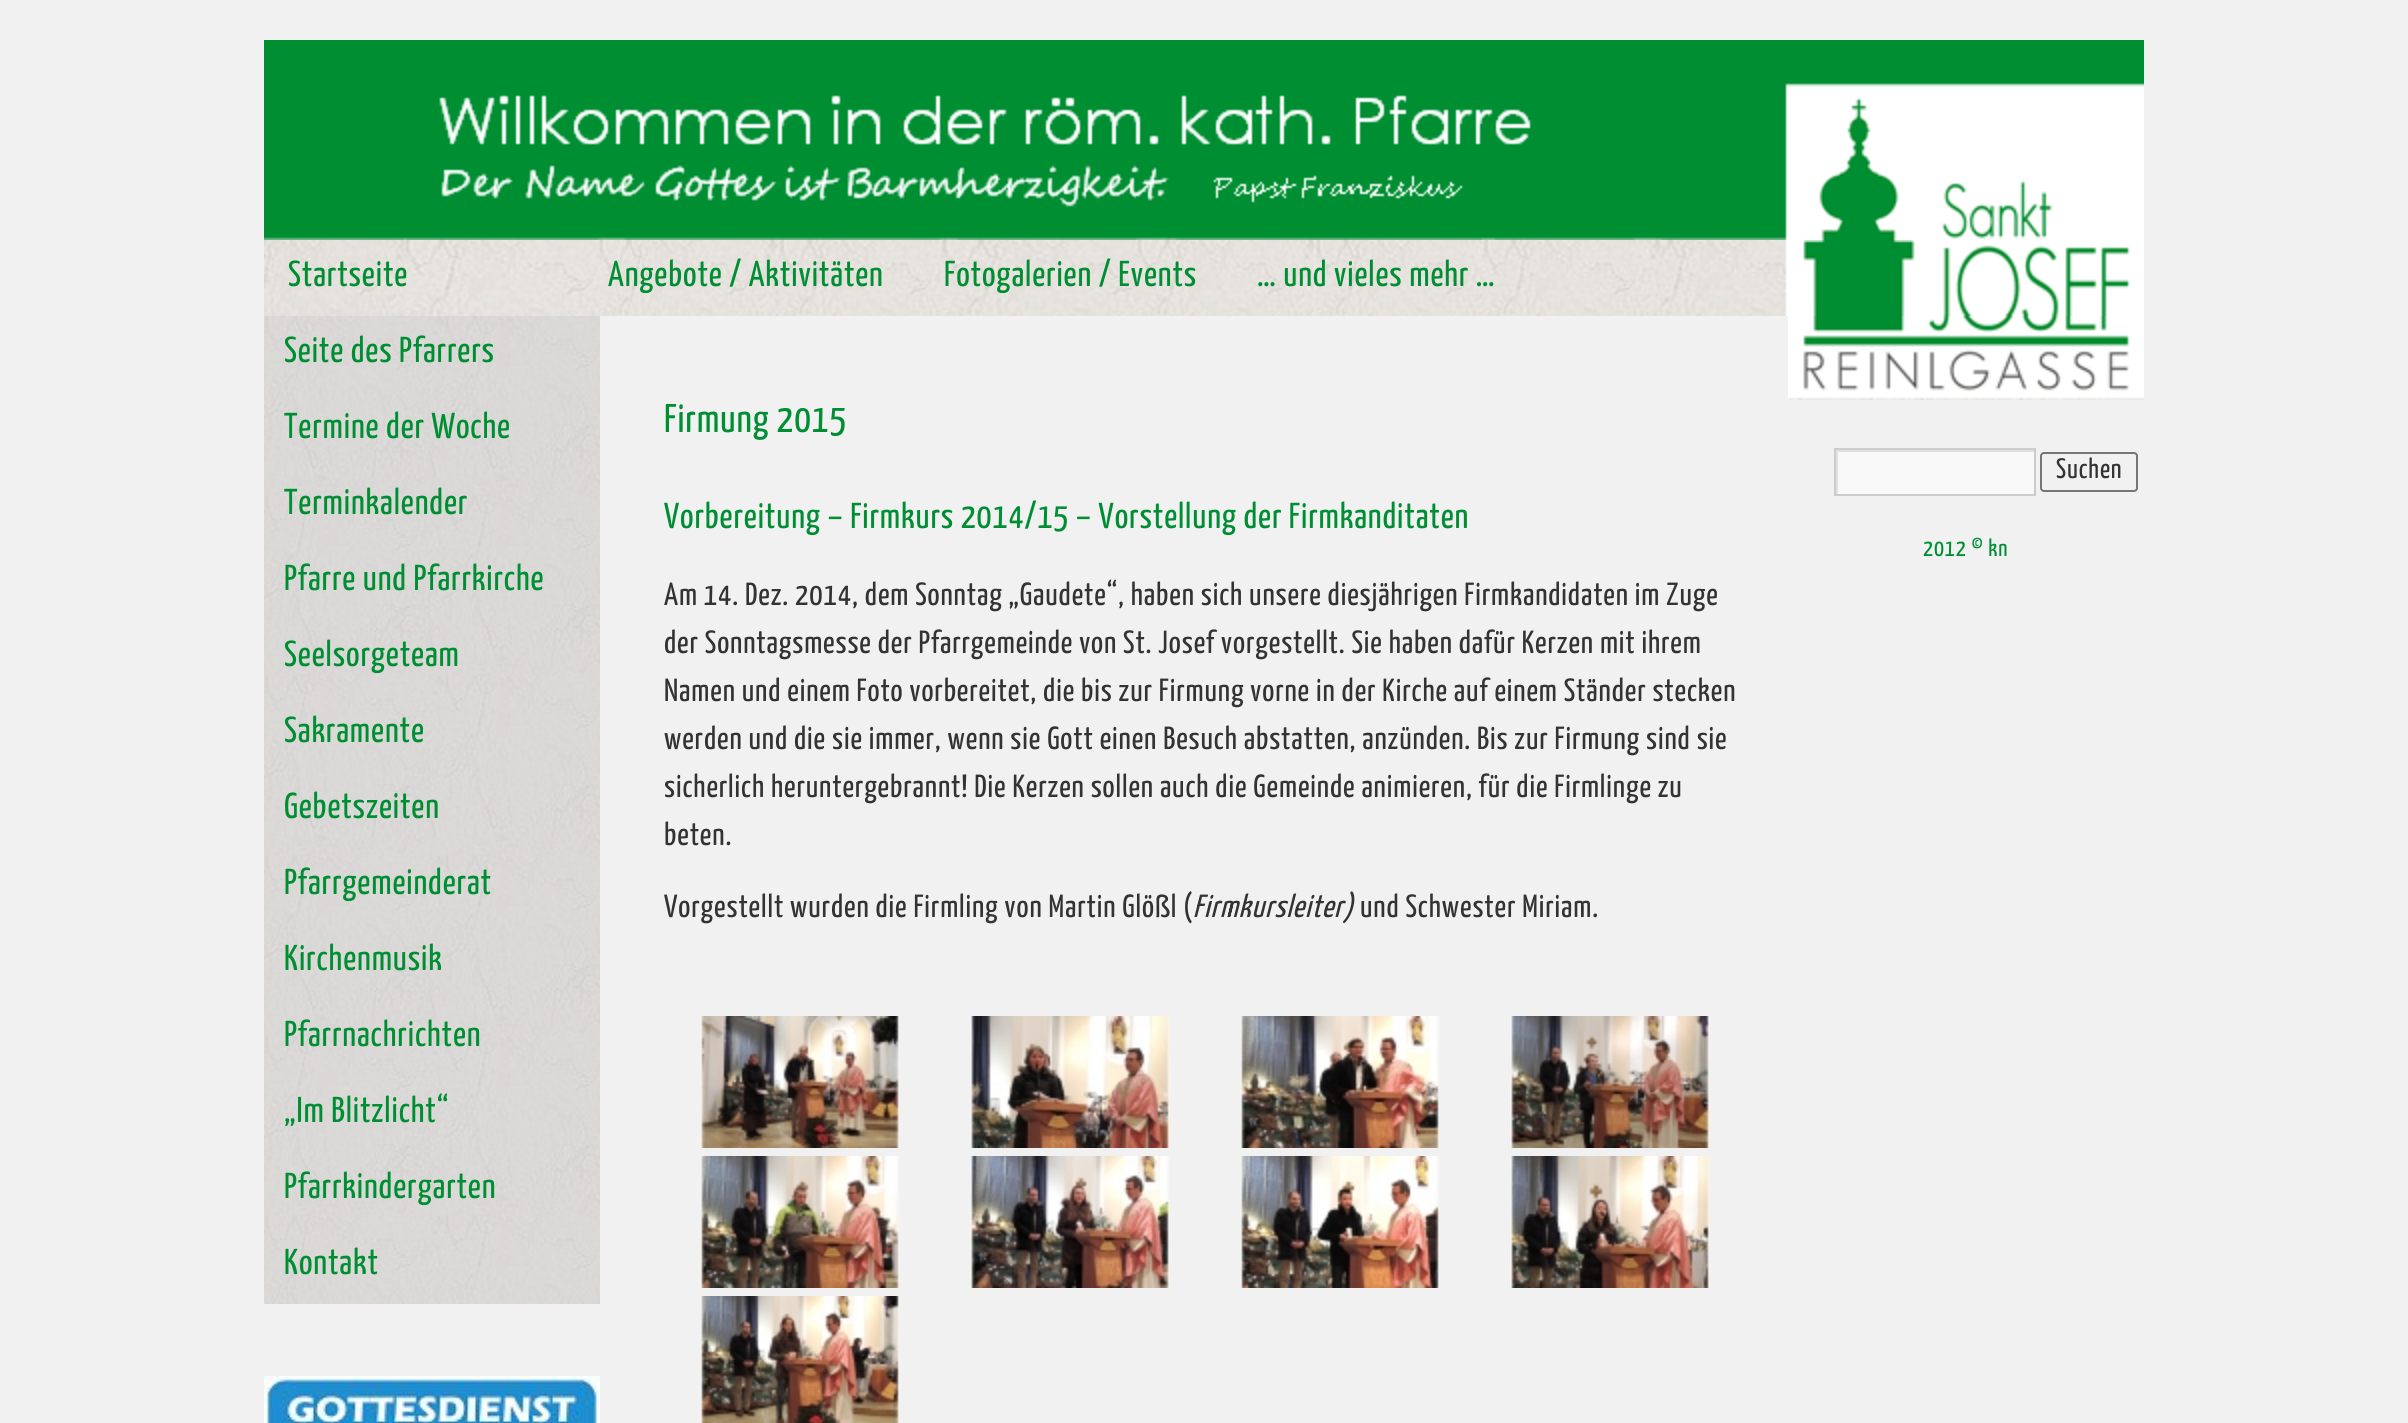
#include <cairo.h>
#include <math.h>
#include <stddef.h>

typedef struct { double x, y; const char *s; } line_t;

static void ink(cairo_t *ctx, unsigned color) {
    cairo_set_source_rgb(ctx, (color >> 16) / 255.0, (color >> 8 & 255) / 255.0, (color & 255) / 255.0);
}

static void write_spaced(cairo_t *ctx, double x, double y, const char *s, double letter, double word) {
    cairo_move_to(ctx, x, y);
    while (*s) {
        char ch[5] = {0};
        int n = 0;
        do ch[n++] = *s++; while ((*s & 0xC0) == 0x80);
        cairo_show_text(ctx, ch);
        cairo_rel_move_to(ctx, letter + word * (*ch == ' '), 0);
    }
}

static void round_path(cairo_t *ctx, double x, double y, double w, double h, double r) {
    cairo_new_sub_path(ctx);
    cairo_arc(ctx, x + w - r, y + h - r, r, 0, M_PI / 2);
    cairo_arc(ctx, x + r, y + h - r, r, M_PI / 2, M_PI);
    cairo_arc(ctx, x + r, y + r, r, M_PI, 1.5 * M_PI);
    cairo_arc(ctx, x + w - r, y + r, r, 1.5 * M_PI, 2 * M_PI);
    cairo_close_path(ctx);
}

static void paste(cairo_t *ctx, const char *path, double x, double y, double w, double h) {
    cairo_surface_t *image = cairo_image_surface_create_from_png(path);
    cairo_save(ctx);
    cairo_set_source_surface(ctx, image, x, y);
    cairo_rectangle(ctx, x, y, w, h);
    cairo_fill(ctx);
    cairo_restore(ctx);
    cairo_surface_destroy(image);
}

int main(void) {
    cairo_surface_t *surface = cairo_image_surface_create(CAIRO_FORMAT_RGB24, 2408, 1423);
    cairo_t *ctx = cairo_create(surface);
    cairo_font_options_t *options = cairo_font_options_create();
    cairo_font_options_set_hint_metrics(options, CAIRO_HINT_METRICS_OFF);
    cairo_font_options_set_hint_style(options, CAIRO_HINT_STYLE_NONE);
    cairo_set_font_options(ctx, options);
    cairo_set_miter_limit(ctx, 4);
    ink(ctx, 0xF1F1F1);
    cairo_paint(ctx);
    paste(ctx, "media/1.png", 264, 40, 1880, 200);
    paste(ctx, "media/2.png", 264, 240, 1880, 76);
    cairo_select_font_face(ctx, "Yanone Kaffeesatz ExtraLight", CAIRO_FONT_SLANT_NORMAL, CAIRO_FONT_WEIGHT_NORMAL);
    cairo_set_font_size(ctx, 36);
    ink(ctx, 0x008E33);
    {
        static const line_t items[] = {
            {288, 286, "Startseite"},
            {608, 286, "Angebote / Aktivitäten"},
            {944, 286, "Fotogalerien / Events"},
            {1257, 286, "… und vieles mehr …"},
        };
        for (size_t i = 0; i < sizeof items / sizeof *items; i++) {
            write_spaced(ctx, items[i].x, items[i].y, items[i].s, 0.9, 0);
        }
    }
    paste(ctx, "media/3.png", 264, 316, 336, 988);
    {
        static const line_t items[] = {
            {284, 362, "Seite des Pfarrers"},
            {284, 438, "Termine der Woche"},
            {284, 514, "Terminkalender"},
            {284, 590, "Pfarre und Pfarrkirche"},
            {284, 666, "Seelsorgeteam"},
            {284, 742, "Sakramente"},
            {284, 818, "Gebetszeiten"},
            {284, 894, "Pfarrgemeinderat"},
            {284, 970, "Kirchenmusik"},
            {284, 1046, "Pfarrnachrichten"},
            {284, 1122, "„Im Blitzlicht“"},
            {284, 1198, "Pfarrkindergarten"},
            {284, 1274, "Kontakt"},
        };
        for (size_t i = 0; i < sizeof items / sizeof *items; i++) {
            write_spaced(ctx, items[i].x, items[i].y, items[i].s, 0.9, 0);
        }
    }
    paste(ctx, "media/4.png", 264, 1376, 336, 47);
    cairo_set_font_size(ctx, 40);
    write_spaced(ctx, 664, 432, "Firmung 2015", 0.9, 0);
    cairo_set_font_size(ctx, 36);
    write_spaced(ctx, 664, 528, "Vorbereitung – Firmkurs 2014/15 – Vorstellung der Firmkanditaten", 0.9, 0);
    cairo_set_font_size(ctx, 32);
    ink(ctx, 0x333333);
    {
        static const line_t items[] = {
            {664, 605, "Am 14. Dez. 2014, dem Sonntag „Gaudete“, haben sich unsere diesjährigen Firmkandidaten im Zuge"},
            {664, 653, "der Sonntagsmesse der Pfarrgemeinde von St. Josef vorgestellt. Sie haben dafür Kerzen mit ihrem"},
            {664, 701, "Namen und einem Foto vorbereitet, die bis zur Firmung vorne in der Kirche auf einem Ständer stecken"},
            {664, 749, "werden und die sie immer, wenn sie Gott einen Besuch abstatten, anzünden. Bis zur Firmung sind sie"},
            {664, 797, "sicherlich heruntergebrannt! Die Kerzen sollen auch die Gemeinde animieren, für die Firmlinge zu"},
            {664, 845, "beten."},
            {664, 917, "Vorgestellt wurden die Firmling von Martin Glößl ("},
        };
        for (size_t i = 0; i < sizeof items / sizeof *items; i++) {
            write_spaced(ctx, items[i].x, items[i].y, items[i].s, 0.9, 0);
        }
    }
    cairo_select_font_face(ctx, "Yanone Kaffeesatz ExtraLight", CAIRO_FONT_SLANT_ITALIC, CAIRO_FONT_WEIGHT_NORMAL);
    write_spaced(ctx, 1193, 917, "Firmkursleiter)", 0.9, 0);
    cairo_select_font_face(ctx, "Yanone Kaffeesatz ExtraLight", CAIRO_FONT_SLANT_NORMAL, CAIRO_FONT_WEIGHT_NORMAL);
    write_spaced(ctx, 1360, 917, "und Schwester Miriam.", 0.9, 0);
    paste(ctx, "media/5.png", 700, 1016, 200, 132);
    paste(ctx, "media/6.png", 970, 1016, 200, 132);
    paste(ctx, "media/7.png", 1240, 1016, 200, 132);
    paste(ctx, "media/8.png", 1510, 1016, 200, 132);
    paste(ctx, "media/9.png", 700, 1156, 200, 132);
    paste(ctx, "media/10.png", 970, 1156, 200, 132);
    paste(ctx, "media/11.png", 1240, 1156, 200, 132);
    paste(ctx, "media/12.png", 1510, 1156, 200, 132);
    paste(ctx, "media/13.png", 700, 1296, 200, 127);
    paste(ctx, "media/14.png", 1788, 316, 356, 84);
    ink(ctx, 0xF9F9F9);
    cairo_rectangle(ctx, 1838, 452, 196, 42);
    cairo_fill(ctx);
    cairo_save(ctx);
    cairo_rectangle(ctx, 1836, 450, 198, 44);
    cairo_clip(ctx);
    ink(ctx, 0xE0E0E0);
    cairo_set_fill_rule(ctx, CAIRO_FILL_RULE_EVEN_ODD);
    cairo_new_path(ctx);
    cairo_move_to(ctx, 1638, 252);
    cairo_line_to(ctx, 2232, 252);
    cairo_line_to(ctx, 2232, 692);
    cairo_line_to(ctx, 1638, 692);
    cairo_close_path(ctx);
    cairo_move_to(ctx, 1838, 452);
    cairo_line_to(ctx, 2036, 452);
    cairo_line_to(ctx, 2036, 496);
    cairo_line_to(ctx, 1838, 496);
    cairo_close_path(ctx);
    cairo_fill(ctx);
    cairo_restore(ctx);
    cairo_rectangle(ctx, 1835, 449, 200, 46);
    ink(ctx, 0xCCCCCC);
    cairo_stroke(ctx);
    round_path(ctx, 2041, 453, 96, 38, 3);
    ink(ctx, 0x767676);
    cairo_stroke(ctx);
    cairo_set_font_size(ctx, 28);
    ink(ctx, 0x333333);
    write_spaced(ctx, 2056, 478, "Suchen", 0.9, 0);
    cairo_set_font_size(ctx, 24);
    ink(ctx, 0x008E33);
    write_spaced(ctx, 1923, 556, "2012 © kn", 0.9, 0);
    cairo_surface_write_to_png(surface, "image.png");
    cairo_font_options_destroy(options);
    cairo_destroy(ctx);
    cairo_surface_destroy(surface);
    return 0;
}
